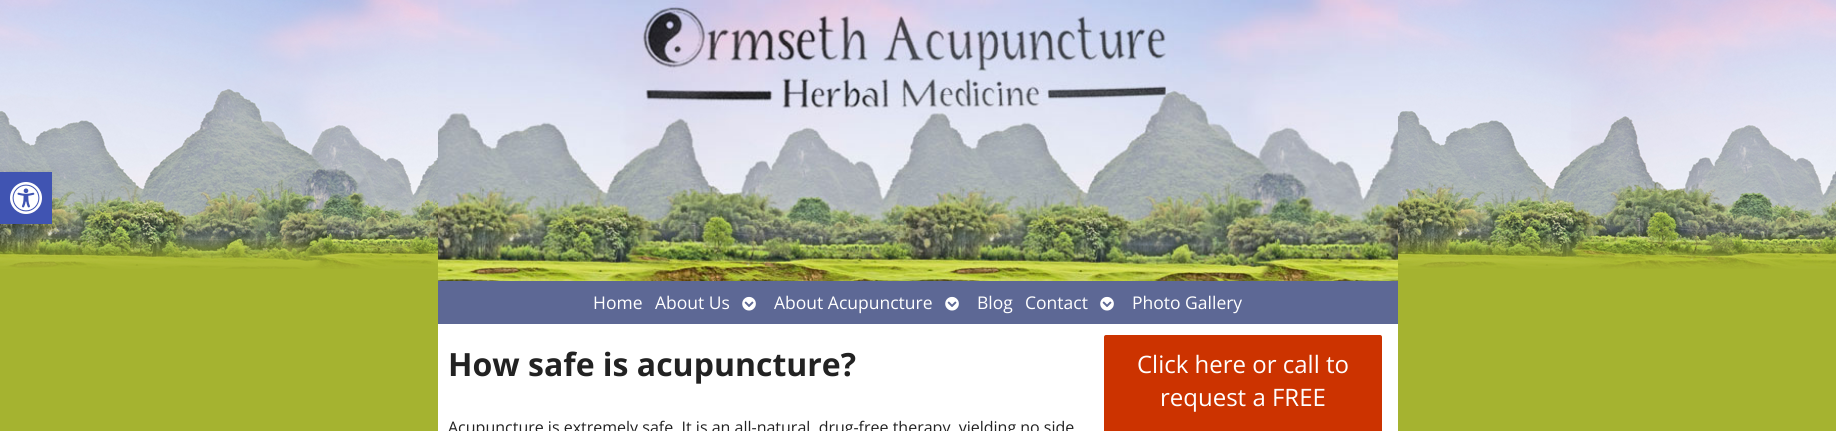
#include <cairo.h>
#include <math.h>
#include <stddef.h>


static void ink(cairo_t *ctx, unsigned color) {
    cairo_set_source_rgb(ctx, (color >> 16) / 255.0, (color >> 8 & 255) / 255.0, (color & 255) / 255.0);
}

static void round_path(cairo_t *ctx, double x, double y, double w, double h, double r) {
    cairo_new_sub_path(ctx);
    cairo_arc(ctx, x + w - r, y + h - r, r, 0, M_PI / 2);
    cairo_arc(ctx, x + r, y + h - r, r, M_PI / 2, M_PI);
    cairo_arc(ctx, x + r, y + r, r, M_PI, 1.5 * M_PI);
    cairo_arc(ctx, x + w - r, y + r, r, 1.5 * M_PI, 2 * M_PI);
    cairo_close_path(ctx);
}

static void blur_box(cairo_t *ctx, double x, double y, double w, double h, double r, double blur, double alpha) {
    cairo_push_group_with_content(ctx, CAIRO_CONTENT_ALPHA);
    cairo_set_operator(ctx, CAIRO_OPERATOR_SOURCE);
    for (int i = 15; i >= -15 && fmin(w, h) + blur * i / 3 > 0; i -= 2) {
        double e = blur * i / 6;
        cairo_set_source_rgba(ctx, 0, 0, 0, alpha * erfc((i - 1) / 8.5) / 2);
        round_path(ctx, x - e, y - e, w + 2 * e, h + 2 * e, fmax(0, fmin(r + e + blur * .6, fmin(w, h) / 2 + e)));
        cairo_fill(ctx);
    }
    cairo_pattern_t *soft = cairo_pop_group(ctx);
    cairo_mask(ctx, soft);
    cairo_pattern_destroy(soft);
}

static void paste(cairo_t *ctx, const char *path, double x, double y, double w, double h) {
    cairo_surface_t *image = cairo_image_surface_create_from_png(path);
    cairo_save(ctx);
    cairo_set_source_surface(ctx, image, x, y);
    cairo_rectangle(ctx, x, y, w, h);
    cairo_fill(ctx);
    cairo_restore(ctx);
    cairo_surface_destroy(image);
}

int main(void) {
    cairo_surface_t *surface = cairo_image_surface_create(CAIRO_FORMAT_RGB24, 1836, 431);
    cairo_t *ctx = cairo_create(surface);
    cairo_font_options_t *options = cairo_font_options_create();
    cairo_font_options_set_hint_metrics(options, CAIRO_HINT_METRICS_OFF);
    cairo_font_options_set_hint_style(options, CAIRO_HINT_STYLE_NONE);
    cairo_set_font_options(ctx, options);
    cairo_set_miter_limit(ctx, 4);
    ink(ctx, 0xA5B330);
    cairo_paint(ctx);
    paste(ctx, "media/1.png", 0, 0, 1836, 269);
    ink(ctx, 0x000000);
    blur_box(ctx, 0, 172, 52, 52, 0, 5, 0.1);
    ink(ctx, 0x4054B2);
    cairo_rectangle(ctx, 0, 172, 52, 52);
    cairo_fill(ctx);
    paste(ctx, "media/2.png", 10, 182, 32, 32);
    ink(ctx, 0xFFFFFF);
    cairo_rectangle(ctx, 438, 324, 960, 107);
    cairo_fill(ctx);
    paste(ctx, "media/3.png", 438, 0, 960, 281);
    ink(ctx, 0x5D6895);
    cairo_rectangle(ctx, 438, 281, 960, 43);
    cairo_fill(ctx);
    cairo_select_font_face(ctx, "Open Sans", CAIRO_FONT_SLANT_NORMAL, CAIRO_FONT_WEIGHT_NORMAL);
    cairo_set_font_size(ctx, 17.5);
    ink(ctx, 0xFFFFFF);
    cairo_move_to(ctx, 593, 309);
    cairo_show_text(ctx, "Home");
    cairo_move_to(ctx, 655, 309);
    cairo_show_text(ctx, "About Us");
    paste(ctx, "media/4.png", 742, 296, 14, 15);
    cairo_move_to(ctx, 774, 309);
    cairo_show_text(ctx, "About Acupuncture");
    paste(ctx, "media/4.png", 945, 296, 14, 15);
    cairo_move_to(ctx, 977, 309);
    cairo_show_text(ctx, "Blog");
    cairo_move_to(ctx, 1025, 309);
    cairo_show_text(ctx, "Contact");
    paste(ctx, "media/4.png", 1100, 296, 14, 15);
    cairo_move_to(ctx, 1132, 309);
    cairo_show_text(ctx, "Photo Gallery");
    cairo_select_font_face(ctx, "Open Sans", CAIRO_FONT_SLANT_NORMAL, CAIRO_FONT_WEIGHT_BOLD);
    cairo_set_font_size(ctx, 32);
    ink(ctx, 0x222222);
    cairo_move_to(ctx, 448, 376);
    cairo_show_text(ctx, "How safe is acupuncture?");
    cairo_select_font_face(ctx, "Open Sans", CAIRO_FONT_SLANT_NORMAL, CAIRO_FONT_WEIGHT_NORMAL);
    cairo_set_font_size(ctx, 16);
    cairo_move_to(ctx, 448, 433);
    cairo_show_text(ctx, "Acupuncture is extremely safe. It is an all-natural, drug-free therapy, yielding no side");
    ink(ctx, 0xCC3300);
    round_path(ctx, 1104, 335, 278, 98, 2);
    cairo_fill(ctx);
    cairo_set_font_size(ctx, 24);
    ink(ctx, 0xFFFFFF);
    cairo_move_to(ctx, 1137, 373);
    cairo_show_text(ctx, "Click here or call to");
    cairo_move_to(ctx, 1160, 406);
    cairo_show_text(ctx, "request a FREE");
    cairo_surface_write_to_png(surface, "image.png");
    cairo_font_options_destroy(options);
    cairo_destroy(ctx);
    cairo_surface_destroy(surface);
    return 0;
}
